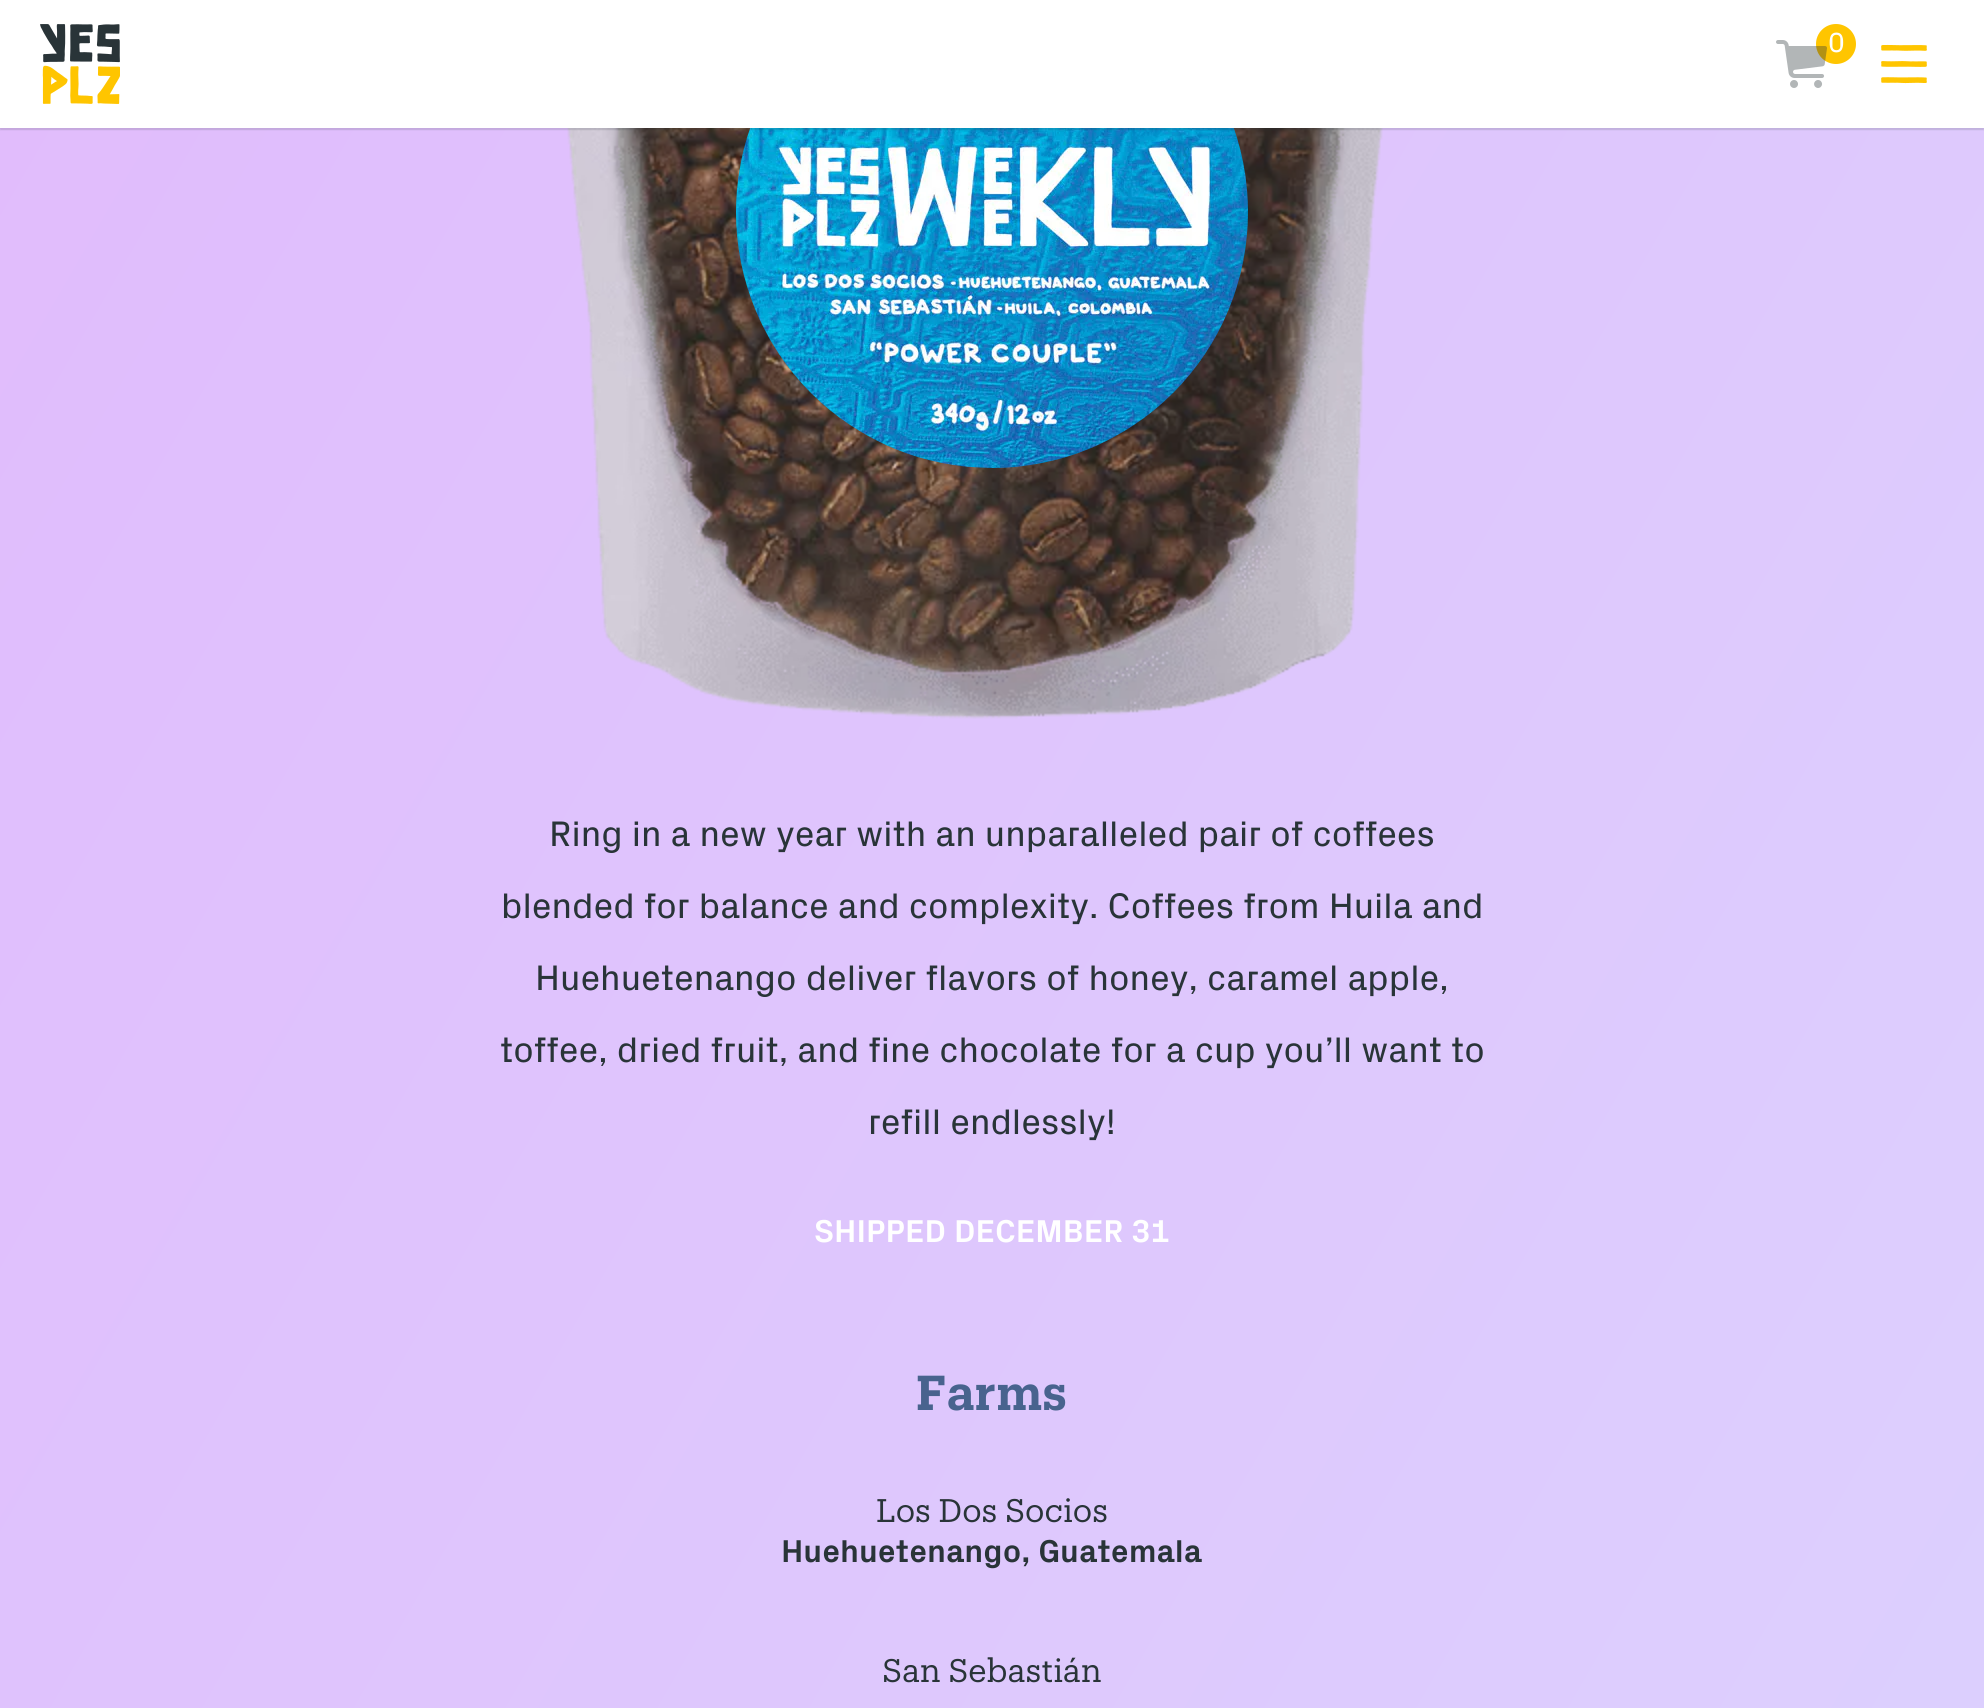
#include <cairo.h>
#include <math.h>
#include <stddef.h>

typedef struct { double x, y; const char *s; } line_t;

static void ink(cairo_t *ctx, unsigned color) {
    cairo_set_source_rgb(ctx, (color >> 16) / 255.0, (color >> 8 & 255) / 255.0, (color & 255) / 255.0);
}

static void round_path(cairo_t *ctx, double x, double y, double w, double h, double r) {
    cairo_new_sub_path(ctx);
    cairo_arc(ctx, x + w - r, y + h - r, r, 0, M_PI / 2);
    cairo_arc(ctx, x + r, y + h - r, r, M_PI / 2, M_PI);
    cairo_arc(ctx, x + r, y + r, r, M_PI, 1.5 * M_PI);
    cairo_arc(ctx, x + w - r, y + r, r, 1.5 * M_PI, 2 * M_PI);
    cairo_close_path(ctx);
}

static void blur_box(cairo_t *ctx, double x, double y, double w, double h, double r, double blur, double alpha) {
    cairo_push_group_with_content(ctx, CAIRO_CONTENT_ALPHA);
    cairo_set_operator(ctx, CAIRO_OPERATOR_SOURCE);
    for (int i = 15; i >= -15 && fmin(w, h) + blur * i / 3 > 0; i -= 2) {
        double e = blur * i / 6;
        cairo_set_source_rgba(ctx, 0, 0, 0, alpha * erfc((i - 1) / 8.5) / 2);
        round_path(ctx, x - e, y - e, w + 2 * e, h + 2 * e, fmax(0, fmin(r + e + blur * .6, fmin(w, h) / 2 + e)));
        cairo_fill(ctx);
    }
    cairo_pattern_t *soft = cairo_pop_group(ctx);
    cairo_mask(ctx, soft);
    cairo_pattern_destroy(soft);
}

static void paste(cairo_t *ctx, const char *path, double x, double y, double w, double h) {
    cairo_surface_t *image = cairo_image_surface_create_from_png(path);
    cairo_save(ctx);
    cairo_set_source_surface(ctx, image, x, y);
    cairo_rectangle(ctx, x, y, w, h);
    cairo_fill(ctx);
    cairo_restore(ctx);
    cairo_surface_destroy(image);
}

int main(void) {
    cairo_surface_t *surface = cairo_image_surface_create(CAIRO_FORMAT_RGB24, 1984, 1708);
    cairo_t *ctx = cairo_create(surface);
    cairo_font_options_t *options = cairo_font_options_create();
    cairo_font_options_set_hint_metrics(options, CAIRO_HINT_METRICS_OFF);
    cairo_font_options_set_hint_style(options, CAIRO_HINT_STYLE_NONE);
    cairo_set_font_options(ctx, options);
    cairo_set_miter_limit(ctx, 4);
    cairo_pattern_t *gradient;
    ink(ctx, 0xFFFFFF);
    cairo_paint(ctx);
    gradient = cairo_pattern_create_linear(-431, -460, 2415, 1182);
    cairo_pattern_add_color_stop_rgba(gradient, 0, 0.886, 0.718, 0.988, 1);
    cairo_pattern_add_color_stop_rgba(gradient, 1, 0.863, 0.816, 0.996, 1);
    cairo_set_source(ctx, gradient);
    cairo_pattern_destroy(gradient);
    cairo_rectangle(ctx, 0, 128, 1984, 1580);
    cairo_fill(ctx);
    paste(ctx, "media/4.png", 567, 128, 816, 591);
    paste(ctx, "media/5.png", 736, 128, 512, 340);
    ink(ctx, 0x293438);
    blur_box(ctx, 0, 2, 1984, 128, 0, 0.5, 0.16);
    ink(ctx, 0xFFFFFF);
    cairo_rectangle(ctx, 0, 1, 1984, 127);
    cairo_fill(ctx);
    paste(ctx, "media/1.png", 40, 24, 80, 80);
    ink(ctx, 0xFFC500);
    cairo_arc(ctx, 1836, 44, 20, 0, 2 * M_PI);
    cairo_fill(ctx);
    paste(ctx, "media/2.png", 1776, 40, 51, 48);
    cairo_select_font_face(ctx, "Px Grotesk", CAIRO_FONT_SLANT_NORMAL, CAIRO_FONT_WEIGHT_NORMAL);
    cairo_set_font_size(ctx, 28);
    ink(ctx, 0xFFFFFF);
    cairo_move_to(ctx, 1828, 52);
    cairo_show_text(ctx, "0");
    paste(ctx, "media/3.png", 1881, 44, 46, 40);
    cairo_set_font_size(ctx, 36);
    ink(ctx, 0x293438);
    {
        static const line_t items[] = {
            {549, 846, "Ring in a new year with an unparalleled pair of coffees"},
            {501, 918, "blended for balance and complexity. Coffees from Huila and"},
            {535, 990, "Huehuetenango deliver flavors of honey, caramel apple,"},
            {500, 1062, "toffee, dried fruit, and fine chocolate for a cup you’ll want to"},
            {868, 1134, "refill endlessly!"},
        };
        for (size_t i = 0; i < sizeof items / sizeof *items; i++) {
            cairo_move_to(ctx, items[i].x, items[i].y);
            cairo_show_text(ctx, items[i].s);
        }
    }
    cairo_select_font_face(ctx, "Px Grotesk", CAIRO_FONT_SLANT_NORMAL, CAIRO_FONT_WEIGHT_BOLD);
    cairo_set_font_size(ctx, 32);
    ink(ctx, 0xFFFFFF);
    cairo_move_to(ctx, 814, 1242);
    cairo_show_text(ctx, "SHIPPED DECEMBER 31");
    cairo_select_font_face(ctx, "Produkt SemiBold", CAIRO_FONT_SLANT_NORMAL, CAIRO_FONT_WEIGHT_NORMAL);
    cairo_set_font_size(ctx, 48);
    ink(ctx, 0x48638E);
    cairo_move_to(ctx, 916, 1410);
    cairo_show_text(ctx, "Farms");
    cairo_select_font_face(ctx, "Produkt", CAIRO_FONT_SLANT_NORMAL, CAIRO_FONT_WEIGHT_NORMAL);
    cairo_set_font_size(ctx, 32);
    ink(ctx, 0x293438);
    cairo_move_to(ctx, 876, 1522);
    cairo_show_text(ctx, "Los Dos Socios");
    cairo_select_font_face(ctx, "Px Grotesk", CAIRO_FONT_SLANT_NORMAL, CAIRO_FONT_WEIGHT_BOLD);
    cairo_move_to(ctx, 781, 1562);
    cairo_show_text(ctx, "Huehuetenango, Guatemala");
    cairo_select_font_face(ctx, "Produkt", CAIRO_FONT_SLANT_NORMAL, CAIRO_FONT_WEIGHT_NORMAL);
    cairo_move_to(ctx, 882, 1682);
    cairo_show_text(ctx, "San Sebastián");
    cairo_surface_write_to_png(surface, "image.png");
    cairo_font_options_destroy(options);
    cairo_destroy(ctx);
    cairo_surface_destroy(surface);
    return 0;
}
